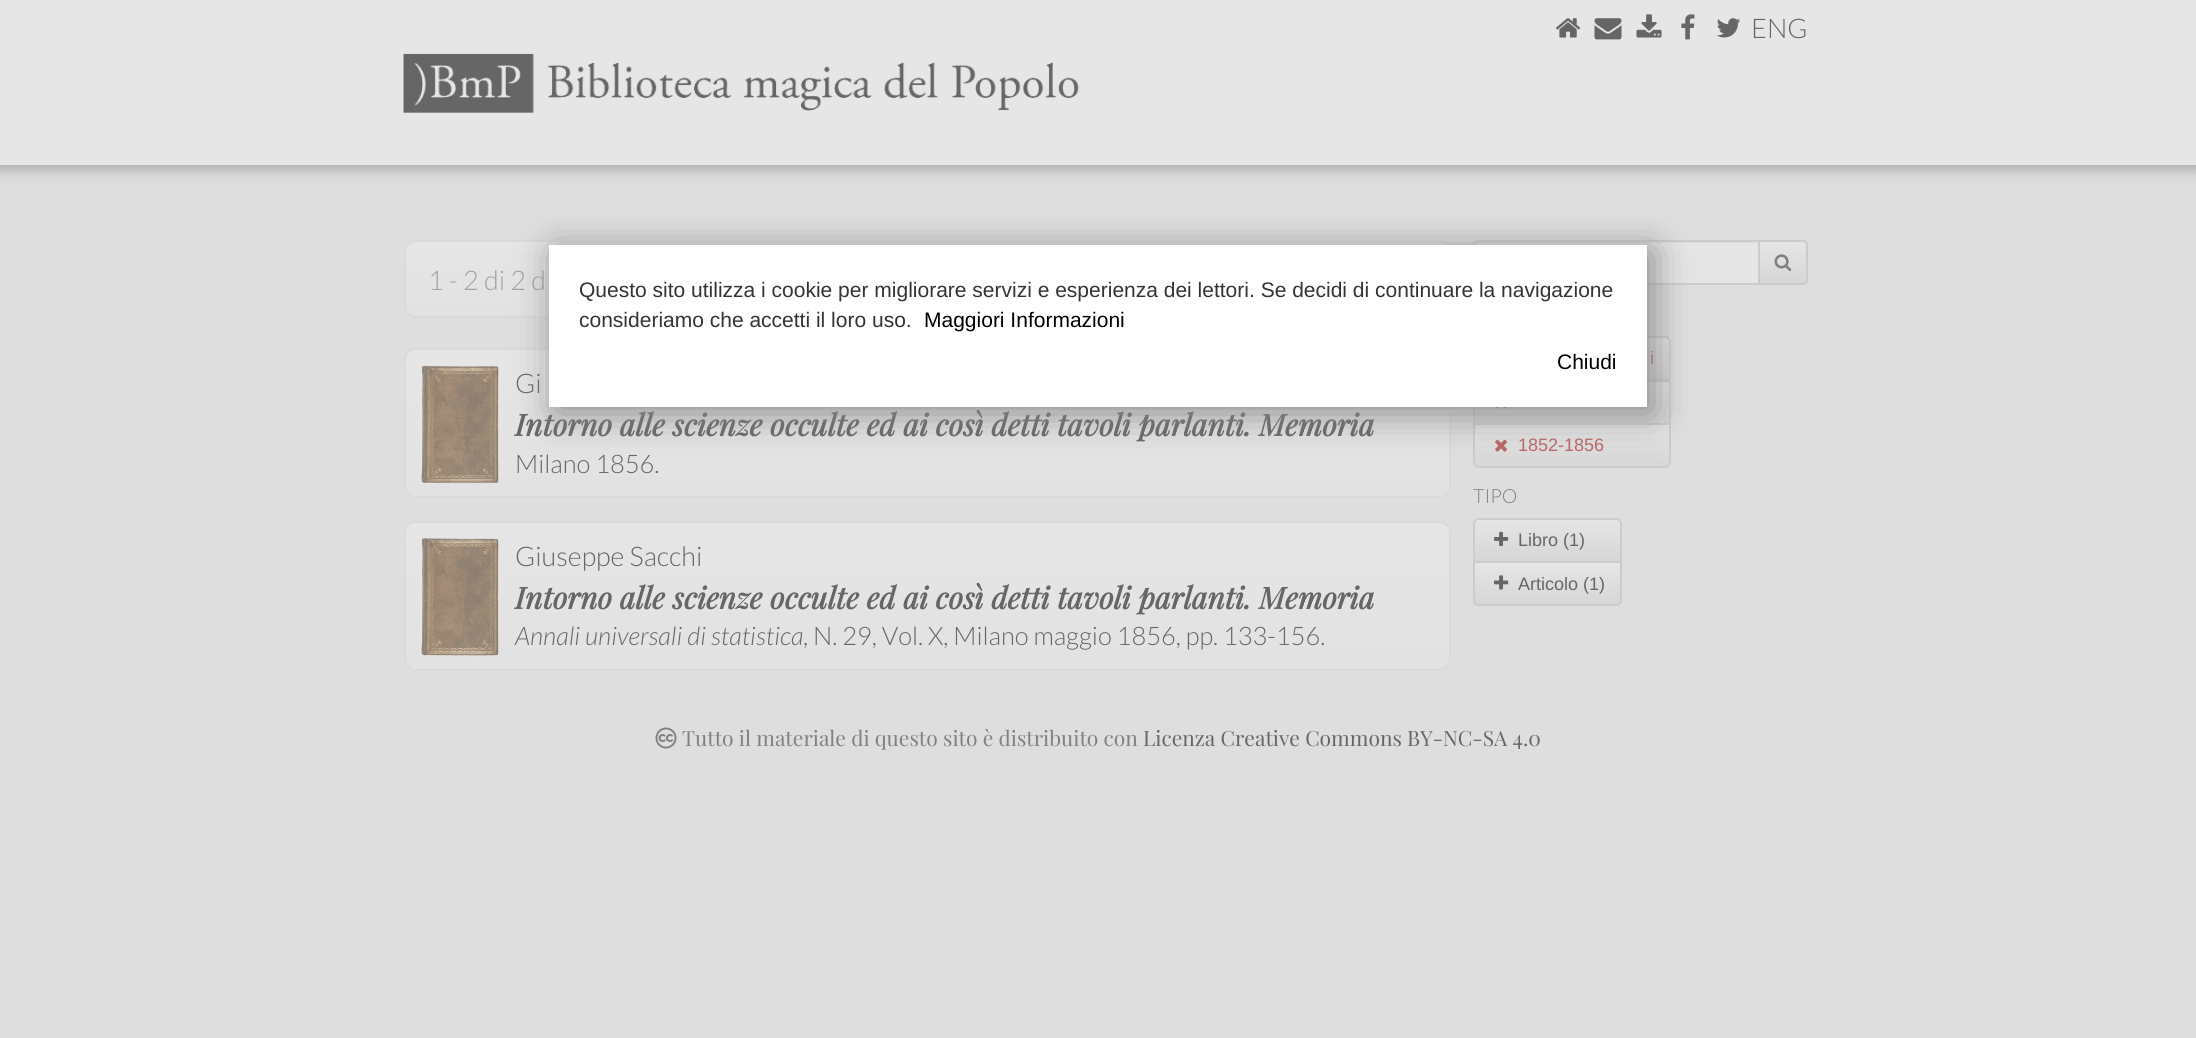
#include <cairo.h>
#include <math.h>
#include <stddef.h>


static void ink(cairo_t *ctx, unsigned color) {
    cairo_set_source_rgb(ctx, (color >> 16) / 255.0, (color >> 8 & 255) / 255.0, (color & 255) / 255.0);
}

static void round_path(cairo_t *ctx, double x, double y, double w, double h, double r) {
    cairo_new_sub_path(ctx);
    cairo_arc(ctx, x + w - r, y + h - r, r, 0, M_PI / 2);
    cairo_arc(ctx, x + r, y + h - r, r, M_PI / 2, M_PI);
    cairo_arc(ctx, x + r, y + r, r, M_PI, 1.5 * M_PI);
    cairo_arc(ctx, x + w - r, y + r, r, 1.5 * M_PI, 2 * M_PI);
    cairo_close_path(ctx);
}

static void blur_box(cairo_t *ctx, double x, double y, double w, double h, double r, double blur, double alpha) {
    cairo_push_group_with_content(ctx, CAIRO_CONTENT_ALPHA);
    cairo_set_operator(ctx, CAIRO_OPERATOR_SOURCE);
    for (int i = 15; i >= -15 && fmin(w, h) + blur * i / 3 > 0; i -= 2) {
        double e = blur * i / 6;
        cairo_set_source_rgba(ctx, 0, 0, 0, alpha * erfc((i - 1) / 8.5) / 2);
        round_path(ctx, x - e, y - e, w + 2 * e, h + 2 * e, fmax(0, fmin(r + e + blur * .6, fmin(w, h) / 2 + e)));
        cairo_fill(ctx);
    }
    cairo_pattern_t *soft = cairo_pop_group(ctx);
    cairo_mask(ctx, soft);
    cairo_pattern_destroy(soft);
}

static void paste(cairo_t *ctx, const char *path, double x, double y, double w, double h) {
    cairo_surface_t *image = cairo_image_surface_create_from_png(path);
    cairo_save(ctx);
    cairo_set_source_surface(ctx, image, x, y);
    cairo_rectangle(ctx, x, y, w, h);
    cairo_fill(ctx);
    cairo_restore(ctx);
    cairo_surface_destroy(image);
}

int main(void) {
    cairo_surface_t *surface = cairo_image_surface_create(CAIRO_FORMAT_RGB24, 2196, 1038);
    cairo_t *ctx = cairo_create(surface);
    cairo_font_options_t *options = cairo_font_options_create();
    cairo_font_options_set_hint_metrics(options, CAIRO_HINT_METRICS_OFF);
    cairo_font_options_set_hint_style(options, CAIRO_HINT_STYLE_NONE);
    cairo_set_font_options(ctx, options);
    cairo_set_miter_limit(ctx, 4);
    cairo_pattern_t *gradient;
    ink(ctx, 0xDEDEDE);
    cairo_paint(ctx);
    ink(ctx, 0xA2A2A2);
    blur_box(ctx, -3, -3, 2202, 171, 0, 7.5, 1);
    ink(ctx, 0xE6E6E6);
    cairo_rectangle(ctx, 0, 0, 2196, 165);
    cairo_fill(ctx);
    paste(ctx, "media/1.png", 1556, 18, 25, 20);
    paste(ctx, "media/2.png", 1594, 18, 28, 22);
    paste(ctx, "media/3.png", 1636, 14, 26, 24);
    paste(ctx, "media/4.png", 1681, 14, 14, 26);
    paste(ctx, "media/5.png", 1716, 18, 25, 20);
    cairo_select_font_face(ctx, "Lato Light", CAIRO_FONT_SLANT_NORMAL, CAIRO_FONT_WEIGHT_NORMAL);
    cairo_set_font_size(ctx, 27);
    ink(ctx, 0x666666);
    cairo_move_to(ctx, 1751, 38);
    cairo_show_text(ctx, "ENG");
    paste(ctx, "media/6.png", 403, 53, 676, 60);
    cairo_save(ctx);
    round_path(ctx, 404, 240, 1047, 78, 12);
    cairo_clip(ctx);
    gradient = cairo_pattern_create_linear(927, 241, 927, 317);
    cairo_pattern_add_color_stop_rgba(gradient, 0, 0.902, 0.902, 0.902, 1);
    cairo_pattern_add_color_stop_rgba(gradient, 1, 0.886, 0.886, 0.886, 1);
    cairo_set_source(ctx, gradient);
    cairo_pattern_destroy(gradient);
    cairo_rectangle(ctx, 404, 242, 1045, 75);
    cairo_fill(ctx);
    cairo_restore(ctx);
    round_path(ctx, 405, 241, 1045, 76, 11);
    ink(ctx, 0xDADADA);
    cairo_stroke(ctx);
    ink(ctx, 0xA2A2A2);
    cairo_move_to(ctx, 428, 290);
    cairo_show_text(ctx, "1 - 2 di 2 d");
    cairo_save(ctx);
    round_path(ctx, 404, 348, 1047, 150, 12);
    cairo_clip(ctx);
    gradient = cairo_pattern_create_linear(927, 349, 927, 497);
    cairo_pattern_add_color_stop_rgba(gradient, 0, 0.902, 0.902, 0.902, 1);
    cairo_pattern_add_color_stop_rgba(gradient, 1, 0.886, 0.886, 0.886, 1);
    cairo_set_source(ctx, gradient);
    cairo_pattern_destroy(gradient);
    cairo_rectangle(ctx, 404, 350, 1047, 147);
    cairo_fill(ctx);
    cairo_restore(ctx);
    round_path(ctx, 405, 349, 1045, 148, 11);
    ink(ctx, 0xDADADA);
    cairo_stroke(ctx);
    paste(ctx, "media/7.png", 420, 365, 79, 119);
    ink(ctx, 0x666666);
    cairo_move_to(ctx, 515, 393);
    cairo_show_text(ctx, "Gi");
    cairo_select_font_face(ctx, "Playfair Display", CAIRO_FONT_SLANT_ITALIC, CAIRO_FONT_WEIGHT_BOLD);
    cairo_set_font_size(ctx, 30);
    cairo_move_to(ctx, 515, 436);
    cairo_show_text(ctx, "Intorno alle scienze occulte ed ai così detti tavoli parlanti. Memoria");
    cairo_select_font_face(ctx, "Lato Light", CAIRO_FONT_SLANT_NORMAL, CAIRO_FONT_WEIGHT_NORMAL);
    cairo_set_font_size(ctx, 25.5);
    cairo_move_to(ctx, 515, 473);
    cairo_show_text(ctx, "Milano 1856.");
    cairo_save(ctx);
    round_path(ctx, 404, 521, 1047, 150, 12);
    cairo_clip(ctx);
    gradient = cairo_pattern_create_linear(927, 522, 927, 669);
    cairo_pattern_add_color_stop_rgba(gradient, 0, 0.902, 0.902, 0.902, 1);
    cairo_pattern_add_color_stop_rgba(gradient, 1, 0.886, 0.886, 0.886, 1);
    cairo_set_source(ctx, gradient);
    cairo_pattern_destroy(gradient);
    cairo_rectangle(ctx, 404, 522, 1047, 147);
    cairo_fill(ctx);
    cairo_restore(ctx);
    round_path(ctx, 405, 522, 1045, 148, 11);
    ink(ctx, 0xDADADA);
    cairo_stroke(ctx);
    paste(ctx, "media/8.png", 420, 538, 79, 119);
    cairo_set_font_size(ctx, 27);
    ink(ctx, 0x666666);
    cairo_move_to(ctx, 515, 566);
    cairo_show_text(ctx, "Giuseppe Sacchi");
    cairo_select_font_face(ctx, "Playfair Display", CAIRO_FONT_SLANT_ITALIC, CAIRO_FONT_WEIGHT_BOLD);
    cairo_set_font_size(ctx, 30);
    cairo_move_to(ctx, 515, 609);
    cairo_show_text(ctx, "Intorno alle scienze occulte ed ai così detti tavoli parlanti. Memoria");
    cairo_select_font_face(ctx, "Lato Light", CAIRO_FONT_SLANT_ITALIC, CAIRO_FONT_WEIGHT_NORMAL);
    cairo_set_font_size(ctx, 25.5);
    cairo_move_to(ctx, 515, 645);
    cairo_show_text(ctx, "Annali universali di statistica");
    cairo_select_font_face(ctx, "Lato Light", CAIRO_FONT_SLANT_NORMAL, CAIRO_FONT_WEIGHT_NORMAL);
    cairo_move_to(ctx, 803, 645);
    cairo_show_text(ctx, ", N. 29, Vol. X, Milano maggio 1856, pp. 133-156.");
    ink(ctx, 0xE6E6E6);
    cairo_new_path(ctx);
    cairo_move_to(ctx, 1478, 240);
    cairo_line_to(ctx, 1760, 240);
    cairo_line_to(ctx, 1760, 285);
    cairo_line_to(ctx, 1478, 285);
    cairo_curve_to(ctx, 1475, 285, 1473, 283, 1473, 280);
    cairo_line_to(ctx, 1473, 245);
    cairo_curve_to(ctx, 1473, 242, 1475, 240, 1478, 240);
    cairo_close_path(ctx);
    cairo_fill(ctx);
    ink(ctx, 0xDCDCDC);
    cairo_new_path(ctx);
    cairo_move_to(ctx, 1478, 243);
    cairo_line_to(ctx, 1758, 243);
    cairo_line_to(ctx, 1758, 242);
    cairo_line_to(ctx, 1478, 242);
    cairo_curve_to(ctx, 1477, 242, 1476, 243, 1475, 244);
    cairo_close_path(ctx);
    cairo_fill(ctx);
    cairo_new_path(ctx);
    cairo_move_to(ctx, 1478, 241);
    cairo_line_to(ctx, 1759, 241);
    cairo_line_to(ctx, 1759, 284);
    cairo_line_to(ctx, 1478, 284);
    cairo_curve_to(ctx, 1476, 284, 1474, 282, 1474, 280);
    cairo_line_to(ctx, 1474, 245);
    cairo_curve_to(ctx, 1474, 243, 1476, 241, 1478, 241);
    cairo_close_path(ctx);
    ink(ctx, 0xCCCCCC);
    cairo_stroke(ctx);
    cairo_save(ctx);
    cairo_new_path(ctx);
    cairo_move_to(ctx, 1758, 240);
    cairo_line_to(ctx, 1803, 240);
    cairo_curve_to(ctx, 1806, 240, 1808, 242, 1808, 245);
    cairo_line_to(ctx, 1808, 280);
    cairo_curve_to(ctx, 1808, 283, 1806, 285, 1803, 285);
    cairo_line_to(ctx, 1758, 285);
    cairo_close_path(ctx);
    cairo_clip(ctx);
    gradient = cairo_pattern_create_linear(1783, 242, 1783, 284);
    cairo_pattern_add_color_stop_rgba(gradient, 0, 0.902, 0.902, 0.902, 1);
    cairo_pattern_add_color_stop_rgba(gradient, 1, 0.839, 0.839, 0.839, 1);
    cairo_set_source(ctx, gradient);
    cairo_pattern_destroy(gradient);
    cairo_rectangle(ctx, 1760, 242, 48, 42);
    cairo_fill(ctx);
    cairo_restore(ctx);
    cairo_new_path(ctx);
    cairo_move_to(ctx, 1759, 241);
    cairo_line_to(ctx, 1803, 241);
    cairo_curve_to(ctx, 1805, 241, 1807, 243, 1807, 245);
    cairo_line_to(ctx, 1807, 280);
    cairo_curve_to(ctx, 1807, 282, 1805, 284, 1803, 284);
    cairo_line_to(ctx, 1759, 284);
    cairo_close_path(ctx);
    cairo_stroke(ctx);
    paste(ctx, "media/9.png", 1774, 254, 18, 17);
    cairo_save(ctx);
    cairo_new_path(ctx);
    cairo_move_to(ctx, 1479, 336);
    cairo_line_to(ctx, 1665, 336);
    cairo_curve_to(ctx, 1668.5, 336, 1671, 338.5, 1671, 342);
    cairo_line_to(ctx, 1671, 381);
    cairo_line_to(ctx, 1473, 381);
    cairo_line_to(ctx, 1473, 342);
    cairo_curve_to(ctx, 1473, 338.5, 1475.5, 336, 1479, 336);
    cairo_close_path(ctx);
    cairo_clip(ctx);
    gradient = cairo_pattern_create_linear(1572, 338, 1572, 380);
    cairo_pattern_add_color_stop_rgba(gradient, 0, 0.902, 0.902, 0.902, 1);
    cairo_pattern_add_color_stop_rgba(gradient, 1, 0.839, 0.839, 0.839, 1);
    cairo_set_source(ctx, gradient);
    cairo_pattern_destroy(gradient);
    cairo_rectangle(ctx, 1647, 338, 24, 41);
    cairo_fill(ctx);
    cairo_restore(ctx);
    cairo_new_path(ctx);
    cairo_move_to(ctx, 1479, 337);
    cairo_line_to(ctx, 1665, 337);
    cairo_curve_to(ctx, 1668, 337, 1670, 339, 1670, 342);
    cairo_line_to(ctx, 1670, 380);
    cairo_line_to(ctx, 1474, 380);
    cairo_line_to(ctx, 1474, 342);
    cairo_curve_to(ctx, 1474, 339, 1476, 337, 1479, 337);
    cairo_close_path(ctx);
    cairo_stroke(ctx);
    cairo_select_font_face(ctx, "Liberation Sans", CAIRO_FONT_SLANT_NORMAL, CAIRO_FONT_WEIGHT_NORMAL);
    cairo_set_font_size(ctx, 18);
    ink(ctx, 0xBB6666);
    cairo_move_to(ctx, 1650, 364);
    cairo_show_text(ctx, "i");
    gradient = cairo_pattern_create_linear(1572, 381, 1572, 423);
    cairo_pattern_add_color_stop_rgba(gradient, 0, 0.902, 0.902, 0.902, 1);
    cairo_pattern_add_color_stop_rgba(gradient, 1, 0.839, 0.839, 0.839, 1);
    cairo_set_source(ctx, gradient);
    cairo_pattern_destroy(gradient);
    cairo_rectangle(ctx, 1475, 382, 194, 41);
    cairo_fill(ctx);
    cairo_rectangle(ctx, 1474, 381, 196, 43);
    ink(ctx, 0xCCCCCC);
    cairo_stroke(ctx);
    paste(ctx, "media/10.png", 1496, 407, 11, 2);
    cairo_save(ctx);
    cairo_new_path(ctx);
    cairo_move_to(ctx, 1473, 423);
    cairo_line_to(ctx, 1671, 423);
    cairo_line_to(ctx, 1671, 462);
    cairo_curve_to(ctx, 1671, 465.5, 1668.5, 468, 1665, 468);
    cairo_line_to(ctx, 1479, 468);
    cairo_curve_to(ctx, 1475.5, 468, 1473, 465.5, 1473, 462);
    cairo_close_path(ctx);
    cairo_clip(ctx);
    gradient = cairo_pattern_create_linear(1572, 425, 1572, 467);
    cairo_pattern_add_color_stop_rgba(gradient, 0, 0.902, 0.902, 0.902, 1);
    cairo_pattern_add_color_stop_rgba(gradient, 1, 0.839, 0.839, 0.839, 1);
    cairo_set_source(ctx, gradient);
    cairo_pattern_destroy(gradient);
    cairo_rectangle(ctx, 1473, 425, 198, 42);
    cairo_fill(ctx);
    cairo_restore(ctx);
    cairo_new_path(ctx);
    cairo_move_to(ctx, 1474, 424);
    cairo_line_to(ctx, 1670, 424);
    cairo_line_to(ctx, 1670, 462);
    cairo_curve_to(ctx, 1670, 465, 1668, 467, 1665, 467);
    cairo_line_to(ctx, 1479, 467);
    cairo_curve_to(ctx, 1476, 467, 1474, 465, 1474, 462);
    cairo_close_path(ctx);
    cairo_stroke(ctx);
    paste(ctx, "media/11.png", 1495, 439, 12, 13);
    ink(ctx, 0xBB6666);
    cairo_move_to(ctx, 1518, 451);
    cairo_show_text(ctx, "1852-1856");
    cairo_select_font_face(ctx, "Lato Light", CAIRO_FONT_SLANT_NORMAL, CAIRO_FONT_WEIGHT_NORMAL);
    cairo_set_font_size(ctx, 19.5);
    ink(ctx, 0x808080);
    cairo_move_to(ctx, 1473, 503);
    cairo_show_text(ctx, "TIPO");
    cairo_save(ctx);
    cairo_new_path(ctx);
    cairo_move_to(ctx, 1479, 518);
    cairo_line_to(ctx, 1616, 518);
    cairo_curve_to(ctx, 1619.5, 518, 1622, 520.5, 1622, 524);
    cairo_line_to(ctx, 1622, 563);
    cairo_line_to(ctx, 1473, 563);
    cairo_line_to(ctx, 1473, 524);
    cairo_curve_to(ctx, 1473, 520.5, 1475.5, 518, 1479, 518);
    cairo_close_path(ctx);
    cairo_clip(ctx);
    gradient = cairo_pattern_create_linear(1547, 519, 1547, 561);
    cairo_pattern_add_color_stop_rgba(gradient, 0, 0.902, 0.902, 0.902, 1);
    cairo_pattern_add_color_stop_rgba(gradient, 1, 0.839, 0.839, 0.839, 1);
    cairo_set_source(ctx, gradient);
    cairo_pattern_destroy(gradient);
    cairo_rectangle(ctx, 1473, 519, 149, 42);
    cairo_fill(ctx);
    cairo_restore(ctx);
    cairo_new_path(ctx);
    cairo_move_to(ctx, 1479, 519);
    cairo_line_to(ctx, 1616, 519);
    cairo_curve_to(ctx, 1619, 519, 1621, 521, 1621, 524);
    cairo_line_to(ctx, 1621, 562);
    cairo_line_to(ctx, 1474, 562);
    cairo_line_to(ctx, 1474, 524);
    cairo_curve_to(ctx, 1474, 521, 1476, 519, 1479, 519);
    cairo_close_path(ctx);
    ink(ctx, 0xCCCCCC);
    cairo_stroke(ctx);
    paste(ctx, "media/12.png", 1494, 531, 15, 15);
    cairo_select_font_face(ctx, "Liberation Sans", CAIRO_FONT_SLANT_NORMAL, CAIRO_FONT_WEIGHT_NORMAL);
    cairo_set_font_size(ctx, 18);
    ink(ctx, 0x666666);
    cairo_move_to(ctx, 1518, 546);
    cairo_show_text(ctx, "Libro (1)");
    cairo_save(ctx);
    cairo_new_path(ctx);
    cairo_move_to(ctx, 1473, 561);
    cairo_line_to(ctx, 1622, 561);
    cairo_line_to(ctx, 1622, 600);
    cairo_curve_to(ctx, 1622, 603.5, 1619.5, 606, 1616, 606);
    cairo_line_to(ctx, 1479, 606);
    cairo_curve_to(ctx, 1475.5, 606, 1473, 603.5, 1473, 600);
    cairo_close_path(ctx);
    cairo_clip(ctx);
    gradient = cairo_pattern_create_linear(1547, 563, 1547, 605);
    cairo_pattern_add_color_stop_rgba(gradient, 0, 0.902, 0.902, 0.902, 1);
    cairo_pattern_add_color_stop_rgba(gradient, 1, 0.839, 0.839, 0.839, 1);
    cairo_set_source(ctx, gradient);
    cairo_pattern_destroy(gradient);
    cairo_rectangle(ctx, 1473, 563, 149, 42);
    cairo_fill(ctx);
    cairo_restore(ctx);
    cairo_new_path(ctx);
    cairo_move_to(ctx, 1474, 562);
    cairo_line_to(ctx, 1621, 562);
    cairo_line_to(ctx, 1621, 600);
    cairo_curve_to(ctx, 1621, 603, 1619, 605, 1616, 605);
    cairo_line_to(ctx, 1479, 605);
    cairo_curve_to(ctx, 1476, 605, 1474, 603, 1474, 600);
    cairo_close_path(ctx);
    ink(ctx, 0xCCCCCC);
    cairo_stroke(ctx);
    paste(ctx, "media/13.png", 1494, 575, 15, 15);
    ink(ctx, 0x666666);
    cairo_move_to(ctx, 1518, 590);
    cairo_show_text(ctx, "Articolo (1)");
    ink(ctx, 0x888888);
    blur_box(ctx, 555, 251, 1098, 162, 0, 19, 1);
    ink(ctx, 0xFFFFFF);
    cairo_rectangle(ctx, 549, 245, 1098, 162);
    cairo_fill(ctx);
    cairo_set_font_size(ctx, 21);
    ink(ctx, 0x333333);
    cairo_move_to(ctx, 579, 297);
    cairo_show_text(ctx, "Questo sito utilizza i cookie per migliorare servizi e esperienza dei lettori. Se decidi di continuare la navigazione");
    cairo_move_to(ctx, 579, 327);
    cairo_show_text(ctx, "consideriamo che accetti il loro uso.");
    ink(ctx, 0x000000);
    cairo_move_to(ctx, 924, 327);
    cairo_show_text(ctx, "Maggiori Informazioni");
    cairo_move_to(ctx, 1557, 369);
    cairo_show_text(ctx, "Chiudi");
    paste(ctx, "media/14.png", 655, 727, 22, 22);
    cairo_select_font_face(ctx, "Playfair Display", CAIRO_FONT_SLANT_NORMAL, CAIRO_FONT_WEIGHT_NORMAL);
    ink(ctx, 0x808080);
    cairo_move_to(ctx, 682, 746);
    cairo_show_text(ctx, "Tutto il materiale di questo sito è distribuito con");
    ink(ctx, 0x666666);
    cairo_move_to(ctx, 1143, 746);
    cairo_show_text(ctx, "Licenza Creative Commons BY-NC-SA 4.0");
    cairo_surface_write_to_png(surface, "image.png");
    cairo_font_options_destroy(options);
    cairo_destroy(ctx);
    cairo_surface_destroy(surface);
    return 0;
}
